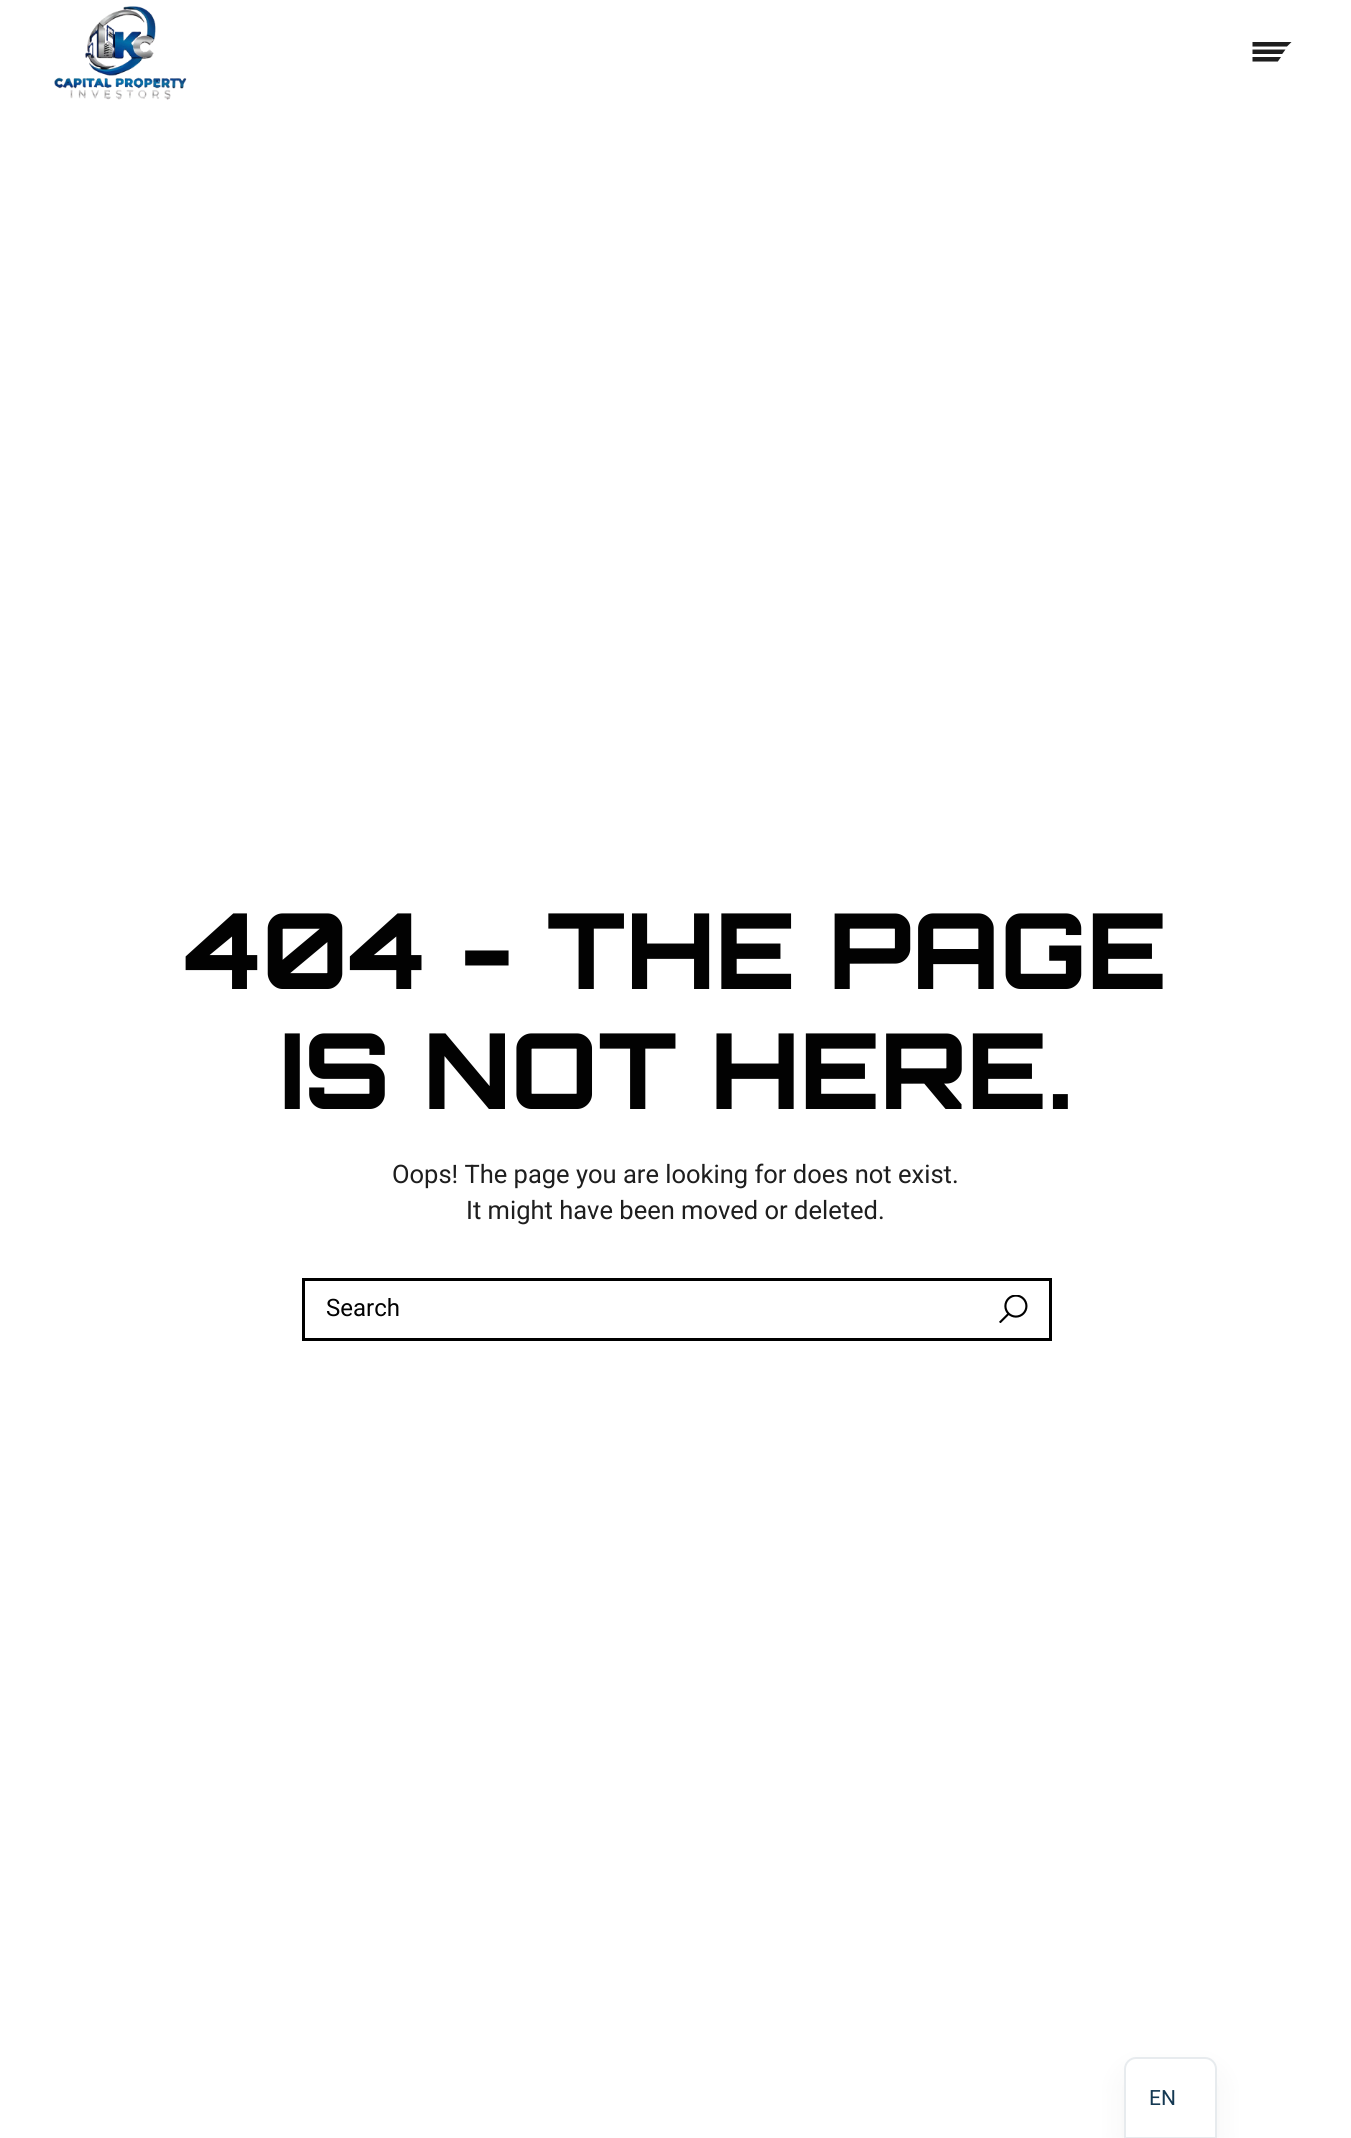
#include <cairo.h>
#include <math.h>
#include <stddef.h>


static void ink(cairo_t *ctx, unsigned color) {
    cairo_set_source_rgb(ctx, (color >> 16) / 255.0, (color >> 8 & 255) / 255.0, (color & 255) / 255.0);
}

static void round_path(cairo_t *ctx, double x, double y, double w, double h, double r) {
    cairo_new_sub_path(ctx);
    cairo_arc(ctx, x + w - r, y + h - r, r, 0, M_PI / 2);
    cairo_arc(ctx, x + r, y + h - r, r, M_PI / 2, M_PI);
    cairo_arc(ctx, x + r, y + r, r, M_PI, 1.5 * M_PI);
    cairo_arc(ctx, x + w - r, y + r, r, 1.5 * M_PI, 2 * M_PI);
    cairo_close_path(ctx);
}

static void blur_box(cairo_t *ctx, double x, double y, double w, double h, double r, double blur, double alpha) {
    cairo_push_group_with_content(ctx, CAIRO_CONTENT_ALPHA);
    cairo_set_operator(ctx, CAIRO_OPERATOR_SOURCE);
    for (int i = 15; i >= -15 && fmin(w, h) + blur * i / 3 > 0; i -= 2) {
        double e = blur * i / 6;
        cairo_set_source_rgba(ctx, 0, 0, 0, alpha * erfc((i - 1) / 8.5) / 2);
        round_path(ctx, x - e, y - e, w + 2 * e, h + 2 * e, fmax(0, fmin(r + e + blur * .6, fmin(w, h) / 2 + e)));
        cairo_fill(ctx);
    }
    cairo_pattern_t *soft = cairo_pop_group(ctx);
    cairo_mask(ctx, soft);
    cairo_pattern_destroy(soft);
}

static void paste(cairo_t *ctx, const char *path, double x, double y, double w, double h) {
    cairo_surface_t *image = cairo_image_surface_create_from_png(path);
    cairo_save(ctx);
    cairo_set_source_surface(ctx, image, x, y);
    cairo_rectangle(ctx, x, y, w, h);
    cairo_fill(ctx);
    cairo_restore(ctx);
    cairo_surface_destroy(image);
}

int main(void) {
    cairo_surface_t *surface = cairo_image_surface_create(CAIRO_FORMAT_RGB24, 1351, 2138);
    cairo_t *ctx = cairo_create(surface);
    cairo_font_options_t *options = cairo_font_options_create();
    cairo_font_options_set_hint_metrics(options, CAIRO_HINT_METRICS_OFF);
    cairo_font_options_set_hint_style(options, CAIRO_HINT_STYLE_NONE);
    cairo_set_font_options(ctx, options);
    cairo_set_miter_limit(ctx, 4);
    ink(ctx, 0xFFFFFF);
    cairo_paint(ctx);
    paste(ctx, "media/1.png", 54, 6, 133, 94);
    paste(ctx, "media/2.png", 1252, 42, 40, 20);
    cairo_select_font_face(ctx, "Orbitron ExtraBold", CAIRO_FONT_SLANT_NORMAL, CAIRO_FONT_WEIGHT_NORMAL);
    cairo_set_font_size(ctx, 105);
    ink(ctx, 0x020202);
    cairo_move_to(ctx, 185, 989);
    cairo_show_text(ctx, "404 - THE PAGE");
    cairo_move_to(ctx, 281, 1109);
    cairo_show_text(ctx, "IS NOT HERE.");
    cairo_select_font_face(ctx, "Roboto", CAIRO_FONT_SLANT_NORMAL, CAIRO_FONT_WEIGHT_NORMAL);
    cairo_set_font_size(ctx, 25.5);
    ink(ctx, 0x1E1E1E);
    cairo_move_to(ctx, 392, 1183);
    cairo_show_text(ctx, "Oops! The page you are looking for does not exist.");
    cairo_move_to(ctx, 466, 1219);
    cairo_show_text(ctx, "It might have been moved or deleted.");
    cairo_rectangle(ctx, 303.5, 1279.5, 747, 60);
    ink(ctx, 0x000000);
    cairo_set_line_width(ctx, 3);
    cairo_stroke(ctx);
    cairo_set_font_size(ctx, 24);
    ink(ctx, 0x020202);
    cairo_move_to(ctx, 326, 1316);
    cairo_show_text(ctx, "Search");
    paste(ctx, "media/3.png", 999, 1295, 29, 28);
    ink(ctx, 0x000000);
    blur_box(ctx, 1124, 2072, 93, 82, 12, 15, 0.05);
    ink(ctx, 0xFFFFFF);
    cairo_new_path(ctx);
    cairo_move_to(ctx, 1136, 2058);
    cairo_line_to(ctx, 1205, 2058);
    cairo_curve_to(ctx, 1211, 2058, 1216, 2063, 1216, 2069);
    cairo_line_to(ctx, 1216, 2138);
    cairo_line_to(ctx, 1125, 2138);
    cairo_line_to(ctx, 1125, 2069);
    cairo_curve_to(ctx, 1125, 2063, 1130, 2058, 1136, 2058);
    cairo_close_path(ctx);
    cairo_fill_preserve(ctx);
    ink(ctx, 0xE7EBEE);
    cairo_set_line_width(ctx, 2);
    cairo_stroke(ctx);
    cairo_set_font_size(ctx, 21);
    ink(ctx, 0x143852);
    cairo_move_to(ctx, 1149, 2105);
    cairo_show_text(ctx, "EN");
    cairo_surface_write_to_png(surface, "image.png");
    cairo_font_options_destroy(options);
    cairo_destroy(ctx);
    cairo_surface_destroy(surface);
    return 0;
}
